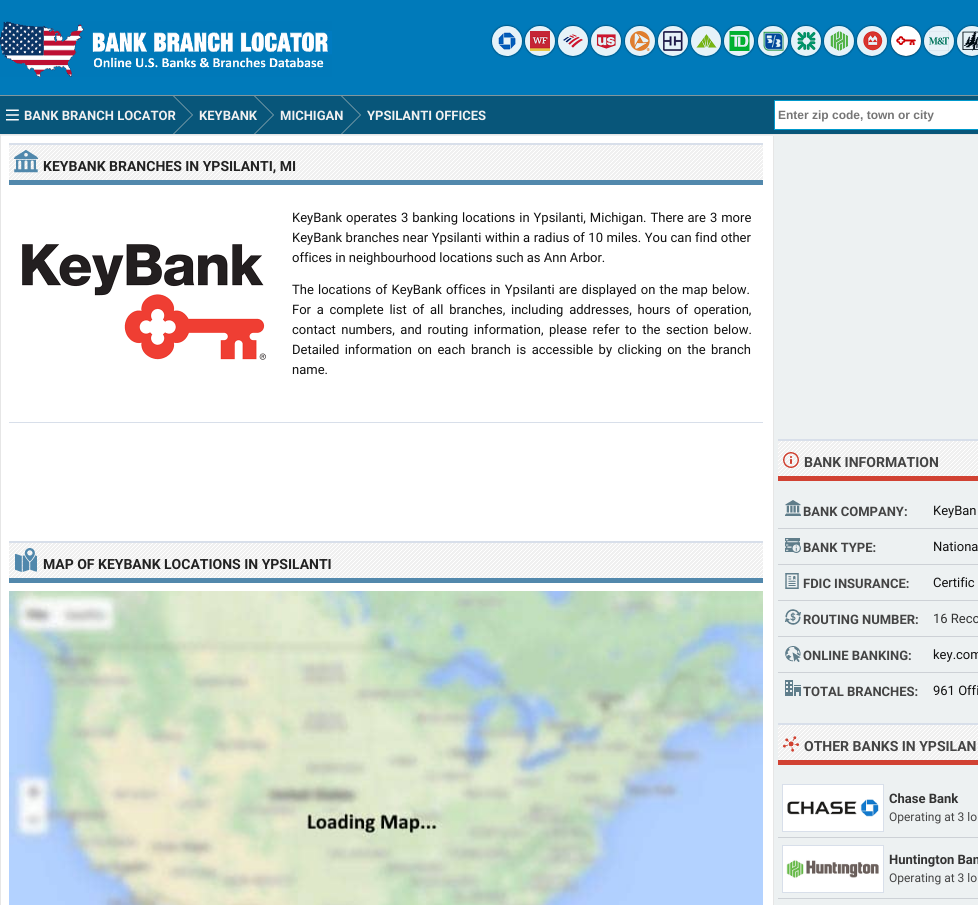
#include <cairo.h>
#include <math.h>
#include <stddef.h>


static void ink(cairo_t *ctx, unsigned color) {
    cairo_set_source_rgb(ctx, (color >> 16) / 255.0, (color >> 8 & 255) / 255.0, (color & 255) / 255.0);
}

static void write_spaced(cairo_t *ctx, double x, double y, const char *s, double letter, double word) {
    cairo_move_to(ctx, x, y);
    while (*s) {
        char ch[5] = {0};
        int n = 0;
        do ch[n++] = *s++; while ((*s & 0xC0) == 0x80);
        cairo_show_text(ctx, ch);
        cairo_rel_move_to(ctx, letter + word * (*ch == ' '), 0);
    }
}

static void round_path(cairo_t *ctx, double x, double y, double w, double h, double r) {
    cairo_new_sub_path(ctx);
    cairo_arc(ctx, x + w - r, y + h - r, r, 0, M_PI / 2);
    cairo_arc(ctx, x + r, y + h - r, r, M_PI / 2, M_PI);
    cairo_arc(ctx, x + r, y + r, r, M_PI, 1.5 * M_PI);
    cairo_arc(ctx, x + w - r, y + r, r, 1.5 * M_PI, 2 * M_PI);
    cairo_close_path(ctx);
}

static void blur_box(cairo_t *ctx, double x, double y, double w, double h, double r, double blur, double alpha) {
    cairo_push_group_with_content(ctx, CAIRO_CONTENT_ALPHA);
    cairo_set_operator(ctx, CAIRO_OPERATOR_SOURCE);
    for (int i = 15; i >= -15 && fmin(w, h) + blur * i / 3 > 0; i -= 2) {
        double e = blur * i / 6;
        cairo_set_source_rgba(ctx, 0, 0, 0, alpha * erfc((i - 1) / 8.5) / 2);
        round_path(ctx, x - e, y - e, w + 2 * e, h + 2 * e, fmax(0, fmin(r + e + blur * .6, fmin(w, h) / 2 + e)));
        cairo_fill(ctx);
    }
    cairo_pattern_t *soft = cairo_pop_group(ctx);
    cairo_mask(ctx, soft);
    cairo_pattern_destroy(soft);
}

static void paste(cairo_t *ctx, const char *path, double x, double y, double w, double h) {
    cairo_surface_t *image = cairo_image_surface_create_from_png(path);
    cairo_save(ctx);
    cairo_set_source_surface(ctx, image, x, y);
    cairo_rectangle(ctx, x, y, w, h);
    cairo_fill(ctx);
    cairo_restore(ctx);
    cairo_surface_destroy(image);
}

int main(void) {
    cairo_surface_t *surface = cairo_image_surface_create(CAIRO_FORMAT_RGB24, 978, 905);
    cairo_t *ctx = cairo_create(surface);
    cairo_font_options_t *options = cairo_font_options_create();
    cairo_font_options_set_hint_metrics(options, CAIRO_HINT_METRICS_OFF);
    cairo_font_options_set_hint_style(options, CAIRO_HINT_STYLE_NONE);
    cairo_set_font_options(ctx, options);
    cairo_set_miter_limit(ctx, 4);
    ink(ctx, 0x007ABA);
    cairo_paint(ctx);
    paste(ctx, "media/1.png", 0, 21, 332, 56);
    cairo_save(ctx);
    cairo_set_fill_rule(ctx, CAIRO_FILL_RULE_EVEN_ODD);
    cairo_new_path(ctx);
    cairo_move_to(ctx, 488, 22);
    cairo_line_to(ctx, 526, 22);
    cairo_line_to(ctx, 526, 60);
    cairo_line_to(ctx, 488, 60);
    cairo_close_path(ctx);
    cairo_move_to(ctx, 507, 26);
    cairo_curve_to(ctx, 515.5, 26, 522, 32.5, 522, 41);
    cairo_curve_to(ctx, 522, 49.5, 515.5, 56, 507, 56);
    cairo_curve_to(ctx, 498.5, 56, 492, 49.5, 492, 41);
    cairo_curve_to(ctx, 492, 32.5, 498.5, 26, 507, 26);
    cairo_close_path(ctx);
    cairo_clip(ctx);
    ink(ctx, 0x000C13);
    blur_box(ctx, 492, 26, 30, 30, 15, 1, 0.8);
    cairo_restore(ctx);
    paste(ctx, "media/2.png", 492, 26, 30, 30);
    cairo_save(ctx);
    cairo_set_fill_rule(ctx, CAIRO_FILL_RULE_EVEN_ODD);
    cairo_new_path(ctx);
    cairo_move_to(ctx, 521, 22);
    cairo_line_to(ctx, 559, 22);
    cairo_line_to(ctx, 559, 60);
    cairo_line_to(ctx, 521, 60);
    cairo_close_path(ctx);
    cairo_move_to(ctx, 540, 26);
    cairo_curve_to(ctx, 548.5, 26, 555, 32.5, 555, 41);
    cairo_curve_to(ctx, 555, 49.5, 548.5, 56, 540, 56);
    cairo_curve_to(ctx, 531.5, 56, 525, 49.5, 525, 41);
    cairo_curve_to(ctx, 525, 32.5, 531.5, 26, 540, 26);
    cairo_close_path(ctx);
    cairo_clip(ctx);
    ink(ctx, 0x000000);
    blur_box(ctx, 525, 26, 30, 30, 15, 1, 0.72);
    cairo_restore(ctx);
    paste(ctx, "media/3.png", 525, 26, 30, 30);
    cairo_save(ctx);
    cairo_set_fill_rule(ctx, CAIRO_FILL_RULE_EVEN_ODD);
    cairo_new_path(ctx);
    cairo_move_to(ctx, 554, 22);
    cairo_line_to(ctx, 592, 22);
    cairo_line_to(ctx, 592, 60);
    cairo_line_to(ctx, 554, 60);
    cairo_close_path(ctx);
    cairo_move_to(ctx, 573, 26);
    cairo_curve_to(ctx, 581.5, 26, 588, 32.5, 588, 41);
    cairo_curve_to(ctx, 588, 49.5, 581.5, 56, 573, 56);
    cairo_curve_to(ctx, 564.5, 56, 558, 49.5, 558, 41);
    cairo_curve_to(ctx, 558, 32.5, 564.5, 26, 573, 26);
    cairo_close_path(ctx);
    cairo_clip(ctx);
    ink(ctx, 0x000000);
    blur_box(ctx, 558, 26, 30, 30, 15, 1, 0.72);
    cairo_restore(ctx);
    paste(ctx, "media/4.png", 558, 26, 30, 30);
    cairo_save(ctx);
    cairo_set_fill_rule(ctx, CAIRO_FILL_RULE_EVEN_ODD);
    cairo_new_path(ctx);
    cairo_move_to(ctx, 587, 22);
    cairo_line_to(ctx, 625, 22);
    cairo_line_to(ctx, 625, 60);
    cairo_line_to(ctx, 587, 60);
    cairo_close_path(ctx);
    cairo_move_to(ctx, 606, 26);
    cairo_curve_to(ctx, 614.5, 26, 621, 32.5, 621, 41);
    cairo_curve_to(ctx, 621, 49.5, 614.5, 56, 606, 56);
    cairo_curve_to(ctx, 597.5, 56, 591, 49.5, 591, 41);
    cairo_curve_to(ctx, 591, 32.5, 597.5, 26, 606, 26);
    cairo_close_path(ctx);
    cairo_clip(ctx);
    ink(ctx, 0x000000);
    blur_box(ctx, 591, 26, 30, 30, 15, 1, 0.72);
    cairo_restore(ctx);
    paste(ctx, "media/5.png", 591, 26, 30, 30);
    cairo_save(ctx);
    cairo_set_fill_rule(ctx, CAIRO_FILL_RULE_EVEN_ODD);
    cairo_new_path(ctx);
    cairo_move_to(ctx, 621, 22);
    cairo_line_to(ctx, 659, 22);
    cairo_line_to(ctx, 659, 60);
    cairo_line_to(ctx, 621, 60);
    cairo_close_path(ctx);
    cairo_move_to(ctx, 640, 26);
    cairo_curve_to(ctx, 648.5, 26, 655, 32.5, 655, 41);
    cairo_curve_to(ctx, 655, 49.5, 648.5, 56, 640, 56);
    cairo_curve_to(ctx, 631.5, 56, 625, 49.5, 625, 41);
    cairo_curve_to(ctx, 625, 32.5, 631.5, 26, 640, 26);
    cairo_close_path(ctx);
    cairo_clip(ctx);
    ink(ctx, 0x000C13);
    blur_box(ctx, 625, 26, 30, 30, 15, 1, 0.8);
    cairo_restore(ctx);
    paste(ctx, "media/6.png", 625, 26, 30, 30);
    cairo_save(ctx);
    cairo_set_fill_rule(ctx, CAIRO_FILL_RULE_EVEN_ODD);
    cairo_new_path(ctx);
    cairo_move_to(ctx, 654, 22);
    cairo_line_to(ctx, 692, 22);
    cairo_line_to(ctx, 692, 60);
    cairo_line_to(ctx, 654, 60);
    cairo_close_path(ctx);
    cairo_move_to(ctx, 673, 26);
    cairo_curve_to(ctx, 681.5, 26, 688, 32.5, 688, 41);
    cairo_curve_to(ctx, 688, 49.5, 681.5, 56, 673, 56);
    cairo_curve_to(ctx, 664.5, 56, 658, 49.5, 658, 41);
    cairo_curve_to(ctx, 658, 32.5, 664.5, 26, 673, 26);
    cairo_close_path(ctx);
    cairo_clip(ctx);
    ink(ctx, 0x000000);
    blur_box(ctx, 658, 26, 30, 30, 15, 1, 0.72);
    cairo_restore(ctx);
    paste(ctx, "media/7.png", 658, 26, 30, 30);
    cairo_save(ctx);
    cairo_set_fill_rule(ctx, CAIRO_FILL_RULE_EVEN_ODD);
    cairo_new_path(ctx);
    cairo_move_to(ctx, 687, 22);
    cairo_line_to(ctx, 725, 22);
    cairo_line_to(ctx, 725, 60);
    cairo_line_to(ctx, 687, 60);
    cairo_close_path(ctx);
    cairo_move_to(ctx, 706, 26);
    cairo_curve_to(ctx, 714.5, 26, 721, 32.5, 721, 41);
    cairo_curve_to(ctx, 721, 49.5, 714.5, 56, 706, 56);
    cairo_curve_to(ctx, 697.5, 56, 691, 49.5, 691, 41);
    cairo_curve_to(ctx, 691, 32.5, 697.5, 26, 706, 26);
    cairo_close_path(ctx);
    cairo_clip(ctx);
    ink(ctx, 0x000000);
    blur_box(ctx, 691, 26, 30, 30, 15, 1, 0.72);
    cairo_restore(ctx);
    paste(ctx, "media/8.png", 691, 26, 30, 30);
    cairo_save(ctx);
    cairo_set_fill_rule(ctx, CAIRO_FILL_RULE_EVEN_ODD);
    cairo_new_path(ctx);
    cairo_move_to(ctx, 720, 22);
    cairo_line_to(ctx, 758, 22);
    cairo_line_to(ctx, 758, 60);
    cairo_line_to(ctx, 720, 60);
    cairo_close_path(ctx);
    cairo_move_to(ctx, 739, 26);
    cairo_curve_to(ctx, 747.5, 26, 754, 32.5, 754, 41);
    cairo_curve_to(ctx, 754, 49.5, 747.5, 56, 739, 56);
    cairo_curve_to(ctx, 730.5, 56, 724, 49.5, 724, 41);
    cairo_curve_to(ctx, 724, 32.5, 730.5, 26, 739, 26);
    cairo_close_path(ctx);
    cairo_clip(ctx);
    ink(ctx, 0x000000);
    blur_box(ctx, 724, 26, 30, 30, 15, 1, 0.72);
    cairo_restore(ctx);
    paste(ctx, "media/9.png", 724, 26, 30, 30);
    cairo_save(ctx);
    cairo_set_fill_rule(ctx, CAIRO_FILL_RULE_EVEN_ODD);
    cairo_new_path(ctx);
    cairo_move_to(ctx, 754, 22);
    cairo_line_to(ctx, 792, 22);
    cairo_line_to(ctx, 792, 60);
    cairo_line_to(ctx, 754, 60);
    cairo_close_path(ctx);
    cairo_move_to(ctx, 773, 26);
    cairo_curve_to(ctx, 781.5, 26, 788, 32.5, 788, 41);
    cairo_curve_to(ctx, 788, 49.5, 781.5, 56, 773, 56);
    cairo_curve_to(ctx, 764.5, 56, 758, 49.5, 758, 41);
    cairo_curve_to(ctx, 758, 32.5, 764.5, 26, 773, 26);
    cairo_close_path(ctx);
    cairo_clip(ctx);
    ink(ctx, 0x000C13);
    blur_box(ctx, 758, 26, 30, 30, 15, 1, 0.8);
    cairo_restore(ctx);
    paste(ctx, "media/10.png", 758, 26, 30, 30);
    cairo_save(ctx);
    cairo_set_fill_rule(ctx, CAIRO_FILL_RULE_EVEN_ODD);
    cairo_new_path(ctx);
    cairo_move_to(ctx, 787, 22);
    cairo_line_to(ctx, 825, 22);
    cairo_line_to(ctx, 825, 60);
    cairo_line_to(ctx, 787, 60);
    cairo_close_path(ctx);
    cairo_move_to(ctx, 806, 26);
    cairo_curve_to(ctx, 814.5, 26, 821, 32.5, 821, 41);
    cairo_curve_to(ctx, 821, 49.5, 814.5, 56, 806, 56);
    cairo_curve_to(ctx, 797.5, 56, 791, 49.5, 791, 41);
    cairo_curve_to(ctx, 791, 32.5, 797.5, 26, 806, 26);
    cairo_close_path(ctx);
    cairo_clip(ctx);
    ink(ctx, 0x000000);
    blur_box(ctx, 791, 26, 30, 30, 15, 1, 0.72);
    cairo_restore(ctx);
    paste(ctx, "media/11.png", 791, 26, 30, 30);
    cairo_save(ctx);
    cairo_set_fill_rule(ctx, CAIRO_FILL_RULE_EVEN_ODD);
    cairo_new_path(ctx);
    cairo_move_to(ctx, 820, 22);
    cairo_line_to(ctx, 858, 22);
    cairo_line_to(ctx, 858, 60);
    cairo_line_to(ctx, 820, 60);
    cairo_close_path(ctx);
    cairo_move_to(ctx, 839, 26);
    cairo_curve_to(ctx, 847.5, 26, 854, 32.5, 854, 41);
    cairo_curve_to(ctx, 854, 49.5, 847.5, 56, 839, 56);
    cairo_curve_to(ctx, 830.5, 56, 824, 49.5, 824, 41);
    cairo_curve_to(ctx, 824, 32.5, 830.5, 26, 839, 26);
    cairo_close_path(ctx);
    cairo_clip(ctx);
    ink(ctx, 0x000000);
    blur_box(ctx, 824, 26, 30, 30, 15, 1, 0.72);
    cairo_restore(ctx);
    paste(ctx, "media/12.png", 824, 26, 30, 30);
    cairo_save(ctx);
    cairo_set_fill_rule(ctx, CAIRO_FILL_RULE_EVEN_ODD);
    cairo_new_path(ctx);
    cairo_move_to(ctx, 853, 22);
    cairo_line_to(ctx, 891, 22);
    cairo_line_to(ctx, 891, 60);
    cairo_line_to(ctx, 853, 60);
    cairo_close_path(ctx);
    cairo_move_to(ctx, 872, 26);
    cairo_curve_to(ctx, 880.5, 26, 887, 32.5, 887, 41);
    cairo_curve_to(ctx, 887, 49.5, 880.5, 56, 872, 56);
    cairo_curve_to(ctx, 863.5, 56, 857, 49.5, 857, 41);
    cairo_curve_to(ctx, 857, 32.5, 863.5, 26, 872, 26);
    cairo_close_path(ctx);
    cairo_clip(ctx);
    ink(ctx, 0x000000);
    blur_box(ctx, 857, 26, 30, 30, 15, 1, 0.72);
    cairo_restore(ctx);
    paste(ctx, "media/13.png", 857, 26, 30, 30);
    ink(ctx, 0x000000);
    blur_box(ctx, 891, 26, 30, 30, 15, 1, 0.8);
    paste(ctx, "media/14.png", 891, 26, 30, 30);
    cairo_save(ctx);
    cairo_set_fill_rule(ctx, CAIRO_FILL_RULE_EVEN_ODD);
    cairo_new_path(ctx);
    cairo_move_to(ctx, 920, 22);
    cairo_line_to(ctx, 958, 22);
    cairo_line_to(ctx, 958, 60);
    cairo_line_to(ctx, 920, 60);
    cairo_close_path(ctx);
    cairo_move_to(ctx, 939, 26);
    cairo_curve_to(ctx, 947.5, 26, 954, 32.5, 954, 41);
    cairo_curve_to(ctx, 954, 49.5, 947.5, 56, 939, 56);
    cairo_curve_to(ctx, 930.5, 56, 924, 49.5, 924, 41);
    cairo_curve_to(ctx, 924, 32.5, 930.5, 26, 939, 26);
    cairo_close_path(ctx);
    cairo_clip(ctx);
    blur_box(ctx, 924, 26, 30, 30, 15, 1, 0.72);
    cairo_restore(ctx);
    paste(ctx, "media/15.png", 924, 26, 30, 30);
    cairo_save(ctx);
    cairo_set_fill_rule(ctx, CAIRO_FILL_RULE_EVEN_ODD);
    cairo_new_path(ctx);
    cairo_move_to(ctx, 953, 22);
    cairo_line_to(ctx, 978, 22);
    cairo_line_to(ctx, 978, 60);
    cairo_line_to(ctx, 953, 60);
    cairo_close_path(ctx);
    cairo_move_to(ctx, 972, 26);
    cairo_curve_to(ctx, 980.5, 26, 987, 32.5, 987, 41);
    cairo_curve_to(ctx, 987, 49.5, 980.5, 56, 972, 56);
    cairo_curve_to(ctx, 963.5, 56, 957, 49.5, 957, 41);
    cairo_curve_to(ctx, 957, 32.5, 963.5, 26, 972, 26);
    cairo_close_path(ctx);
    cairo_clip(ctx);
    blur_box(ctx, 957, 26, 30, 30, 15, 1, 0.72);
    cairo_restore(ctx);
    paste(ctx, "media/16.png", 957, 26, 21, 30);
    ink(ctx, 0x08567A);
    cairo_rectangle(ctx, 0, 96, 978, 38);
    cairo_fill(ctx);
    ink(ctx, 0x80979E);
    cairo_rectangle(ctx, 0, 95, 978, 1);
    cairo_fill(ctx);
    paste(ctx, "media/17.png", 6, 109, 13, 12);
    cairo_select_font_face(ctx, "Roboto", CAIRO_FONT_SLANT_NORMAL, CAIRO_FONT_WEIGHT_BOLD);
    cairo_set_font_size(ctx, 13);
    ink(ctx, 0xF0F0F0);
    cairo_move_to(ctx, 24, 120);
    cairo_show_text(ctx, "BANK BRANCH LOCATOR");
    ink(ctx, 0x90AAB2);
    cairo_new_path(ctx);
    cairo_move_to(ctx, 173, 96);
    cairo_line_to(ctx, 194, 96);
    cairo_line_to(ctx, 194, 115);
    cairo_line_to(ctx, 192, 115);
    cairo_close_path(ctx);
    cairo_move_to(ctx, 194, 134);
    cairo_line_to(ctx, 173, 134);
    cairo_line_to(ctx, 192, 115);
    cairo_line_to(ctx, 194, 115);
    cairo_close_path(ctx);
    cairo_fill(ctx);
    ink(ctx, 0x08567A);
    cairo_new_path(ctx);
    cairo_move_to(ctx, 174, 96);
    cairo_line_to(ctx, 195, 96);
    cairo_line_to(ctx, 195, 115);
    cairo_line_to(ctx, 193, 115);
    cairo_close_path(ctx);
    cairo_move_to(ctx, 195, 134);
    cairo_line_to(ctx, 174, 134);
    cairo_line_to(ctx, 193, 115);
    cairo_line_to(ctx, 195, 115);
    cairo_close_path(ctx);
    cairo_fill(ctx);
    ink(ctx, 0xF0F0F0);
    cairo_move_to(ctx, 199, 120);
    cairo_show_text(ctx, "KEYBANK");
    ink(ctx, 0x90AAB2);
    cairo_new_path(ctx);
    cairo_move_to(ctx, 254, 96);
    cairo_line_to(ctx, 275, 96);
    cairo_line_to(ctx, 275, 115);
    cairo_line_to(ctx, 273, 115);
    cairo_close_path(ctx);
    cairo_move_to(ctx, 275, 134);
    cairo_line_to(ctx, 254, 134);
    cairo_line_to(ctx, 273, 115);
    cairo_line_to(ctx, 275, 115);
    cairo_close_path(ctx);
    cairo_fill(ctx);
    ink(ctx, 0x08567A);
    cairo_new_path(ctx);
    cairo_move_to(ctx, 255, 96);
    cairo_line_to(ctx, 276, 96);
    cairo_line_to(ctx, 276, 115);
    cairo_line_to(ctx, 274, 115);
    cairo_close_path(ctx);
    cairo_move_to(ctx, 276, 134);
    cairo_line_to(ctx, 255, 134);
    cairo_line_to(ctx, 274, 115);
    cairo_line_to(ctx, 276, 115);
    cairo_close_path(ctx);
    cairo_fill(ctx);
    ink(ctx, 0xF0F0F0);
    cairo_move_to(ctx, 280, 120);
    cairo_show_text(ctx, "MICHIGAN");
    ink(ctx, 0x90AAB2);
    cairo_new_path(ctx);
    cairo_move_to(ctx, 341, 96);
    cairo_line_to(ctx, 362, 96);
    cairo_line_to(ctx, 362, 115);
    cairo_line_to(ctx, 360, 115);
    cairo_close_path(ctx);
    cairo_move_to(ctx, 362, 134);
    cairo_line_to(ctx, 341, 134);
    cairo_line_to(ctx, 360, 115);
    cairo_line_to(ctx, 362, 115);
    cairo_close_path(ctx);
    cairo_fill(ctx);
    ink(ctx, 0x08567A);
    cairo_new_path(ctx);
    cairo_move_to(ctx, 342, 96);
    cairo_line_to(ctx, 363, 96);
    cairo_line_to(ctx, 363, 115);
    cairo_line_to(ctx, 361, 115);
    cairo_close_path(ctx);
    cairo_move_to(ctx, 363, 134);
    cairo_line_to(ctx, 342, 134);
    cairo_line_to(ctx, 361, 115);
    cairo_line_to(ctx, 363, 115);
    cairo_close_path(ctx);
    cairo_fill(ctx);
    ink(ctx, 0xF0F0F0);
    cairo_move_to(ctx, 367, 120);
    cairo_show_text(ctx, "YPSILANTI OFFICES");
    ink(ctx, 0xFFFFFF);
    cairo_rectangle(ctx, 774.5, 100.5, 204, 29);
    cairo_fill_preserve(ctx);
    ink(ctx, 0x0099CC);
    cairo_set_line_width(ctx, 1);
    cairo_stroke(ctx);
    cairo_select_font_face(ctx, "Liberation Sans", CAIRO_FONT_SLANT_NORMAL, CAIRO_FONT_WEIGHT_BOLD);
    cairo_set_font_size(ctx, 12);
    ink(ctx, 0x757575);
    cairo_move_to(ctx, 778, 119);
    cairo_show_text(ctx, "Enter zip code, town or city");
    ink(ctx, 0xEDF1F2);
    cairo_rectangle(ctx, 0.5, 134.5, 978, 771);
    cairo_fill_preserve(ctx);
    ink(ctx, 0xE6E6E6);
    cairo_stroke(ctx);
    ink(ctx, 0xFFFFFF);
    cairo_rectangle(ctx, 1, 136, 772, 769);
    cairo_fill(ctx);
    ink(ctx, 0xE6E6E6);
    cairo_rectangle(ctx, 773, 136, 1, 769);
    cairo_fill(ctx);
    paste(ctx, "media/18.png", 9, 145, 754, 35);
    ink(ctx, 0xD8DFEA);
    cairo_rectangle(ctx, 9, 143, 754, 2);
    cairo_fill(ctx);
    ink(ctx, 0x5288AC);
    cairo_rectangle(ctx, 9, 180, 754, 5);
    cairo_fill(ctx);
    paste(ctx, "media/19.png", 14, 150, 24, 23);
    cairo_select_font_face(ctx, "Roboto", CAIRO_FONT_SLANT_NORMAL, CAIRO_FONT_WEIGHT_BOLD);
    cairo_set_font_size(ctx, 14);
    ink(ctx, 0x222222);
    cairo_move_to(ctx, 43, 171);
    cairo_show_text(ctx, "KEYBANK BRANCHES IN YPSILANTI, MI");
    paste(ctx, "media/20.png", 22, 244, 244, 116);
    cairo_select_font_face(ctx, "Roboto", CAIRO_FONT_SLANT_NORMAL, CAIRO_FONT_WEIGHT_NORMAL);
    cairo_set_font_size(ctx, 13);
    ink(ctx, 0x111111);
    write_spaced(ctx, 292, 222, "KeyBank operates 3 banking locations in Ypsilanti, Michigan. There are 3 more", 0, 0.75);
    write_spaced(ctx, 292, 242, "KeyBank branches near Ypsilanti within a radius of 10 miles. You can find other", 0, 0.25);
    cairo_move_to(ctx, 292, 262);
    cairo_show_text(ctx, "offices in neighbourhood locations such as Ann Arbor.");
    write_spaced(ctx, 292, 294, "The locations of KeyBank offices in Ypsilanti are displayed on the map below.", 0, 1);
    write_spaced(ctx, 292, 314, "For a complete list of all branches, including addresses, hours of operation,", 0, 2.5);
    write_spaced(ctx, 292, 334, "contact numbers, and routing information, please refer to the section below.", 0, 2.25);
    write_spaced(ctx, 292, 354, "Detailed information on each branch is accessible by clicking on the branch", 0, 2.25);
    cairo_move_to(ctx, 292, 374);
    cairo_show_text(ctx, "name.");
    ink(ctx, 0xD8DFEA);
    cairo_rectangle(ctx, 9, 422, 754, 1);
    cairo_fill(ctx);
    paste(ctx, "media/18.png", 9, 543, 754, 35);
    cairo_rectangle(ctx, 9, 541, 754, 2);
    cairo_fill(ctx);
    ink(ctx, 0x5288AC);
    cairo_rectangle(ctx, 9, 578, 754, 5);
    cairo_fill(ctx);
    paste(ctx, "media/21.png", 15, 548, 22, 24);
    cairo_select_font_face(ctx, "Roboto", CAIRO_FONT_SLANT_NORMAL, CAIRO_FONT_WEIGHT_BOLD);
    cairo_set_font_size(ctx, 14);
    ink(ctx, 0x222222);
    cairo_move_to(ctx, 43, 569);
    cairo_show_text(ctx, "MAP OF KEYBANK LOCATIONS IN YPSILANTI");
    paste(ctx, "media/22.png", 9, 591, 754, 314);
    paste(ctx, "media/23.png", 778, 441, 200, 35);
    ink(ctx, 0xD8DFEA);
    cairo_rectangle(ctx, 778, 439, 200, 2);
    cairo_fill(ctx);
    ink(ctx, 0xD14233);
    cairo_rectangle(ctx, 778, 476, 200, 5);
    cairo_fill(ctx);
    paste(ctx, "media/24.png", 783, 452, 16, 16);
    ink(ctx, 0x444444);
    cairo_move_to(ctx, 804, 467);
    cairo_show_text(ctx, "BANK INFORMATION");
    paste(ctx, "media/25.png", 785, 500, 16, 16);
    cairo_set_font_size(ctx, 13);
    cairo_move_to(ctx, 803, 516);
    cairo_show_text(ctx, "BANK COMPANY:");
    cairo_select_font_face(ctx, "Roboto", CAIRO_FONT_SLANT_NORMAL, CAIRO_FONT_WEIGHT_NORMAL);
    ink(ctx, 0x111111);
    cairo_move_to(ctx, 933, 515);
    cairo_show_text(ctx, "KeyBan");
    ink(ctx, 0xCDD1D6);
    cairo_rectangle(ctx, 778, 528, 200, 1);
    cairo_fill(ctx);
    paste(ctx, "media/26.png", 785, 538, 16, 15);
    cairo_select_font_face(ctx, "Roboto", CAIRO_FONT_SLANT_NORMAL, CAIRO_FONT_WEIGHT_BOLD);
    ink(ctx, 0x444444);
    cairo_move_to(ctx, 803, 552);
    cairo_show_text(ctx, "BANK TYPE:");
    cairo_select_font_face(ctx, "Roboto", CAIRO_FONT_SLANT_NORMAL, CAIRO_FONT_WEIGHT_NORMAL);
    ink(ctx, 0x111111);
    cairo_move_to(ctx, 933, 551);
    cairo_show_text(ctx, "Nationa");
    ink(ctx, 0xCDD1D6);
    cairo_rectangle(ctx, 778, 564, 200, 1);
    cairo_fill(ctx);
    paste(ctx, "media/27.png", 785, 573, 14, 16);
    cairo_select_font_face(ctx, "Roboto", CAIRO_FONT_SLANT_NORMAL, CAIRO_FONT_WEIGHT_BOLD);
    ink(ctx, 0x444444);
    cairo_move_to(ctx, 803, 588);
    cairo_show_text(ctx, "FDIC INSURANCE:");
    cairo_select_font_face(ctx, "Roboto", CAIRO_FONT_SLANT_NORMAL, CAIRO_FONT_WEIGHT_NORMAL);
    ink(ctx, 0x111111);
    cairo_move_to(ctx, 933, 587);
    cairo_show_text(ctx, "Certific");
    ink(ctx, 0xCDD1D6);
    cairo_rectangle(ctx, 778, 600, 200, 1);
    cairo_fill(ctx);
    paste(ctx, "media/28.png", 785, 609, 16, 16);
    cairo_select_font_face(ctx, "Roboto", CAIRO_FONT_SLANT_NORMAL, CAIRO_FONT_WEIGHT_BOLD);
    ink(ctx, 0x444444);
    cairo_move_to(ctx, 803, 624);
    cairo_show_text(ctx, "ROUTING NUMBER:");
    cairo_select_font_face(ctx, "Roboto", CAIRO_FONT_SLANT_NORMAL, CAIRO_FONT_WEIGHT_NORMAL);
    ink(ctx, 0x333333);
    cairo_move_to(ctx, 933, 623);
    cairo_show_text(ctx, "16 Reco");
    ink(ctx, 0xCDD1D6);
    cairo_rectangle(ctx, 778, 636, 200, 1);
    cairo_fill(ctx);
    paste(ctx, "media/29.png", 785, 646, 16, 16);
    cairo_select_font_face(ctx, "Roboto", CAIRO_FONT_SLANT_NORMAL, CAIRO_FONT_WEIGHT_BOLD);
    ink(ctx, 0x444444);
    cairo_move_to(ctx, 803, 660);
    cairo_show_text(ctx, "ONLINE BANKING:");
    cairo_select_font_face(ctx, "Roboto", CAIRO_FONT_SLANT_NORMAL, CAIRO_FONT_WEIGHT_NORMAL);
    ink(ctx, 0x111111);
    cairo_move_to(ctx, 933, 659);
    cairo_show_text(ctx, "key.com");
    ink(ctx, 0xCDD1D6);
    cairo_rectangle(ctx, 778, 672, 200, 1);
    cairo_fill(ctx);
    paste(ctx, "media/30.png", 785, 680, 16, 16);
    cairo_select_font_face(ctx, "Roboto", CAIRO_FONT_SLANT_NORMAL, CAIRO_FONT_WEIGHT_BOLD);
    ink(ctx, 0x444444);
    cairo_move_to(ctx, 803, 696);
    cairo_show_text(ctx, "TOTAL BRANCHES:");
    cairo_select_font_face(ctx, "Roboto", CAIRO_FONT_SLANT_NORMAL, CAIRO_FONT_WEIGHT_NORMAL);
    ink(ctx, 0x111111);
    cairo_move_to(ctx, 933, 695);
    cairo_show_text(ctx, "961 Offi");
    paste(ctx, "media/23.png", 778, 725, 200, 35);
    ink(ctx, 0xD8DFEA);
    cairo_rectangle(ctx, 778, 723, 200, 2);
    cairo_fill(ctx);
    ink(ctx, 0xD14233);
    cairo_rectangle(ctx, 778, 760, 200, 5);
    cairo_fill(ctx);
    paste(ctx, "media/31.png", 783, 736, 16, 16);
    cairo_select_font_face(ctx, "Roboto", CAIRO_FONT_SLANT_NORMAL, CAIRO_FONT_WEIGHT_BOLD);
    cairo_set_font_size(ctx, 14);
    ink(ctx, 0x444444);
    cairo_move_to(ctx, 804, 751);
    cairo_show_text(ctx, "OTHER BANKS IN YPSILAN");
    cairo_rectangle(ctx, 782.5, 784.5, 101, 47);
    ink(ctx, 0xD8DFEA);
    cairo_stroke(ctx);
    paste(ctx, "media/32.png", 783, 785, 100, 46);
    cairo_set_font_size(ctx, 13);
    ink(ctx, 0x333333);
    cairo_move_to(ctx, 889, 803);
    cairo_show_text(ctx, "Chase Bank");
    cairo_select_font_face(ctx, "Roboto", CAIRO_FONT_SLANT_NORMAL, CAIRO_FONT_WEIGHT_NORMAL);
    cairo_set_font_size(ctx, 12);
    ink(ctx, 0x444444);
    cairo_move_to(ctx, 889, 821);
    cairo_show_text(ctx, "Operating at 3 lo");
    ink(ctx, 0xCDD1D6);
    cairo_rectangle(ctx, 778, 837, 200, 1);
    cairo_fill(ctx);
    cairo_rectangle(ctx, 782.5, 845.5, 101, 47);
    ink(ctx, 0xD8DFEA);
    cairo_stroke(ctx);
    paste(ctx, "media/33.png", 783, 846, 100, 46);
    cairo_select_font_face(ctx, "Roboto", CAIRO_FONT_SLANT_NORMAL, CAIRO_FONT_WEIGHT_BOLD);
    cairo_set_font_size(ctx, 13);
    ink(ctx, 0x333333);
    cairo_move_to(ctx, 889, 864);
    cairo_show_text(ctx, "Huntington Ban");
    cairo_select_font_face(ctx, "Roboto", CAIRO_FONT_SLANT_NORMAL, CAIRO_FONT_WEIGHT_NORMAL);
    cairo_set_font_size(ctx, 12);
    ink(ctx, 0x444444);
    cairo_move_to(ctx, 889, 882);
    cairo_show_text(ctx, "Operating at 3 lo");
    ink(ctx, 0xCDD1D6);
    cairo_rectangle(ctx, 778, 898, 200, 1);
    cairo_fill(ctx);
    cairo_surface_write_to_png(surface, "image.png");
    cairo_font_options_destroy(options);
    cairo_destroy(ctx);
    cairo_surface_destroy(surface);
    return 0;
}
